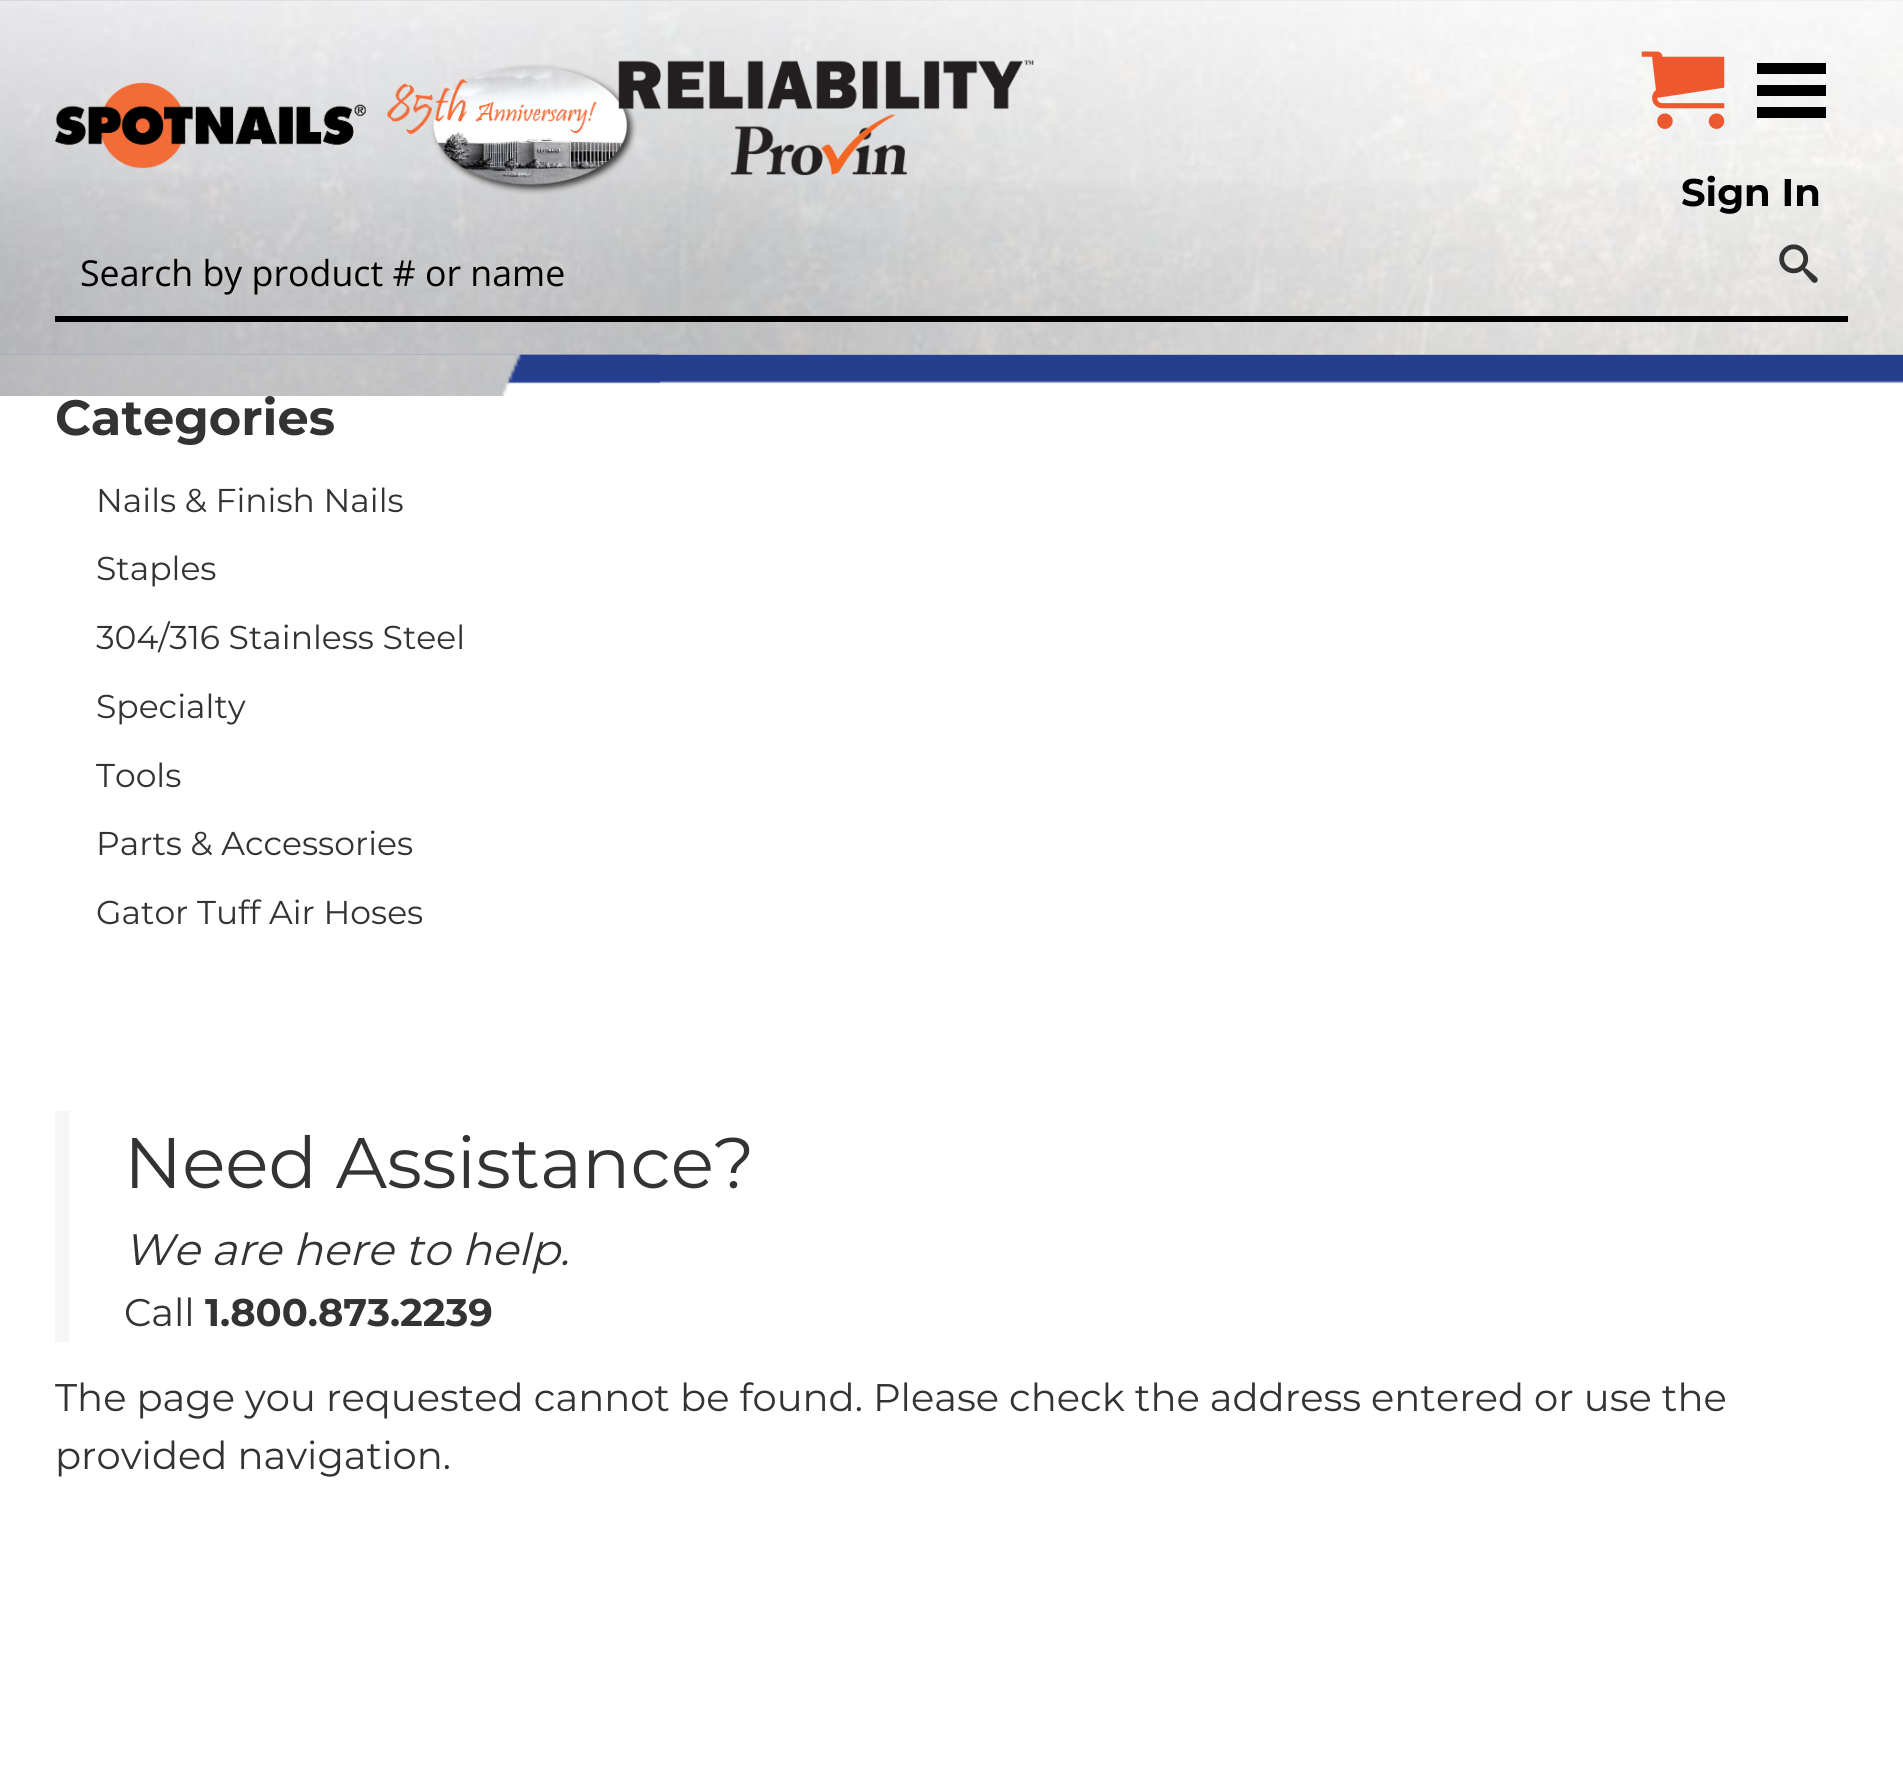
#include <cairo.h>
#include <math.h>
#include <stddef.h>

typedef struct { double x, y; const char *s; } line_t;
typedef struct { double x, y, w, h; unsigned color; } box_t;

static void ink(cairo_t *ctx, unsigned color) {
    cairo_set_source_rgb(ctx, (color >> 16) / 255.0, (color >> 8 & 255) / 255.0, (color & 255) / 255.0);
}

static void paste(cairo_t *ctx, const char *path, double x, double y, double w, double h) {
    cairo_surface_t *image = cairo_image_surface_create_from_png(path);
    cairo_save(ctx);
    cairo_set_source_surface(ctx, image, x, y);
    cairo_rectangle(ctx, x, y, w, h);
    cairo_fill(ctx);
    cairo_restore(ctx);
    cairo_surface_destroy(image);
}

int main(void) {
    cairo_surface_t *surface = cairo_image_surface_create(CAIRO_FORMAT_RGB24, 1903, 1790);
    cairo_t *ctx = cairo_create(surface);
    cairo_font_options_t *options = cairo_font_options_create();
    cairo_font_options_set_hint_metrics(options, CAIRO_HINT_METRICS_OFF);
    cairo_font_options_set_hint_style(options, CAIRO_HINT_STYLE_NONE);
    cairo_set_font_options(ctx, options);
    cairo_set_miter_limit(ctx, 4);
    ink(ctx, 0xFFFFFF);
    cairo_paint(ctx);
    paste(ctx, "media/1.png", 0, 0, 1903, 355);
    paste(ctx, "media/2.png", 55, 64, 582, 130);
    paste(ctx, "media/3.png", 618, 60, 416, 116);
    paste(ctx, "media/4.png", 1641, 51, 84, 78);
    {
        static const box_t items[] = {
            {1757, 63, 69, 11, 0x000000},
            {1757, 85, 69, 11, 0x000000},
            {1757, 107, 69, 11, 0x000000},
        };
        for (size_t i = 0; i < sizeof items / sizeof *items; i++) {
            ink(ctx, items[i].color);
            cairo_rectangle(ctx, items[i].x, items[i].y, items[i].w, items[i].h);
            cairo_fill(ctx);
        }
    }
    cairo_select_font_face(ctx, "Montserrat", CAIRO_FONT_SLANT_NORMAL, CAIRO_FONT_WEIGHT_BOLD);
    cairo_set_font_size(ctx, 38.5);
    cairo_move_to(ctx, 1681, 206);
    cairo_show_text(ctx, "Sign In");
    cairo_rectangle(ctx, 55, 316, 1793, 6);
    cairo_fill(ctx);
    cairo_select_font_face(ctx, "Open Sans", CAIRO_FONT_SLANT_NORMAL, CAIRO_FONT_WEIGHT_NORMAL);
    cairo_set_font_size(ctx, 35.75);
    cairo_move_to(ctx, 80, 286);
    cairo_show_text(ctx, "Search by product # or name");
    paste(ctx, "media/5.png", 1779, 244, 39, 39);
    paste(ctx, "media/6.png", 0, 354, 1903, 30);
    paste(ctx, "media/7.png", 0, 354, 660, 42);
    cairo_select_font_face(ctx, "Montserrat", CAIRO_FONT_SLANT_NORMAL, CAIRO_FONT_WEIGHT_BOLD);
    cairo_set_font_size(ctx, 49.5);
    ink(ctx, 0x333333);
    cairo_move_to(ctx, 55, 435);
    cairo_show_text(ctx, "Categories");
    cairo_select_font_face(ctx, "Montserrat", CAIRO_FONT_SLANT_NORMAL, CAIRO_FONT_WEIGHT_NORMAL);
    cairo_set_font_size(ctx, 33);
    {
        static const line_t items[] = {
            {96, 512, "Nails & Finish Nails"},
            {96, 580, "Staples"},
            {96, 649, "304/316 Stainless Steel"},
            {96, 718, "Specialty"},
            {96, 787, "Tools"},
            {96, 855, "Parts & Accessories"},
            {96, 924, "Gator Tuff Air Hoses"},
        };
        for (size_t i = 0; i < sizeof items / sizeof *items; i++) {
            cairo_move_to(ctx, items[i].x, items[i].y);
            cairo_show_text(ctx, items[i].s);
        }
    }
    ink(ctx, 0xF6F6F6);
    cairo_rectangle(ctx, 55, 1111, 14, 231);
    cairo_fill(ctx);
    cairo_set_font_size(ctx, 71.5);
    ink(ctx, 0x333333);
    cairo_move_to(ctx, 124, 1188);
    cairo_show_text(ctx, "Need Assistance?");
    cairo_select_font_face(ctx, "Montserrat", CAIRO_FONT_SLANT_ITALIC, CAIRO_FONT_WEIGHT_NORMAL);
    cairo_set_font_size(ctx, 44);
    cairo_move_to(ctx, 124, 1265);
    cairo_show_text(ctx, "We are here to help.");
    cairo_select_font_face(ctx, "Montserrat", CAIRO_FONT_SLANT_NORMAL, CAIRO_FONT_WEIGHT_NORMAL);
    cairo_set_font_size(ctx, 38.5);
    cairo_move_to(ctx, 124, 1326);
    cairo_show_text(ctx, "Call");
    cairo_select_font_face(ctx, "Montserrat", CAIRO_FONT_SLANT_NORMAL, CAIRO_FONT_WEIGHT_BOLD);
    cairo_move_to(ctx, 205, 1326);
    cairo_show_text(ctx, "1.800.873.2239");
    cairo_select_font_face(ctx, "Montserrat", CAIRO_FONT_SLANT_NORMAL, CAIRO_FONT_WEIGHT_NORMAL);
    cairo_move_to(ctx, 55, 1411);
    cairo_show_text(ctx, "The page you requested cannot be found. Please check the address entered or use the");
    cairo_move_to(ctx, 55, 1469);
    cairo_show_text(ctx, "provided navigation.");
    cairo_surface_write_to_png(surface, "image.png");
    cairo_font_options_destroy(options);
    cairo_destroy(ctx);
    cairo_surface_destroy(surface);
    return 0;
}
